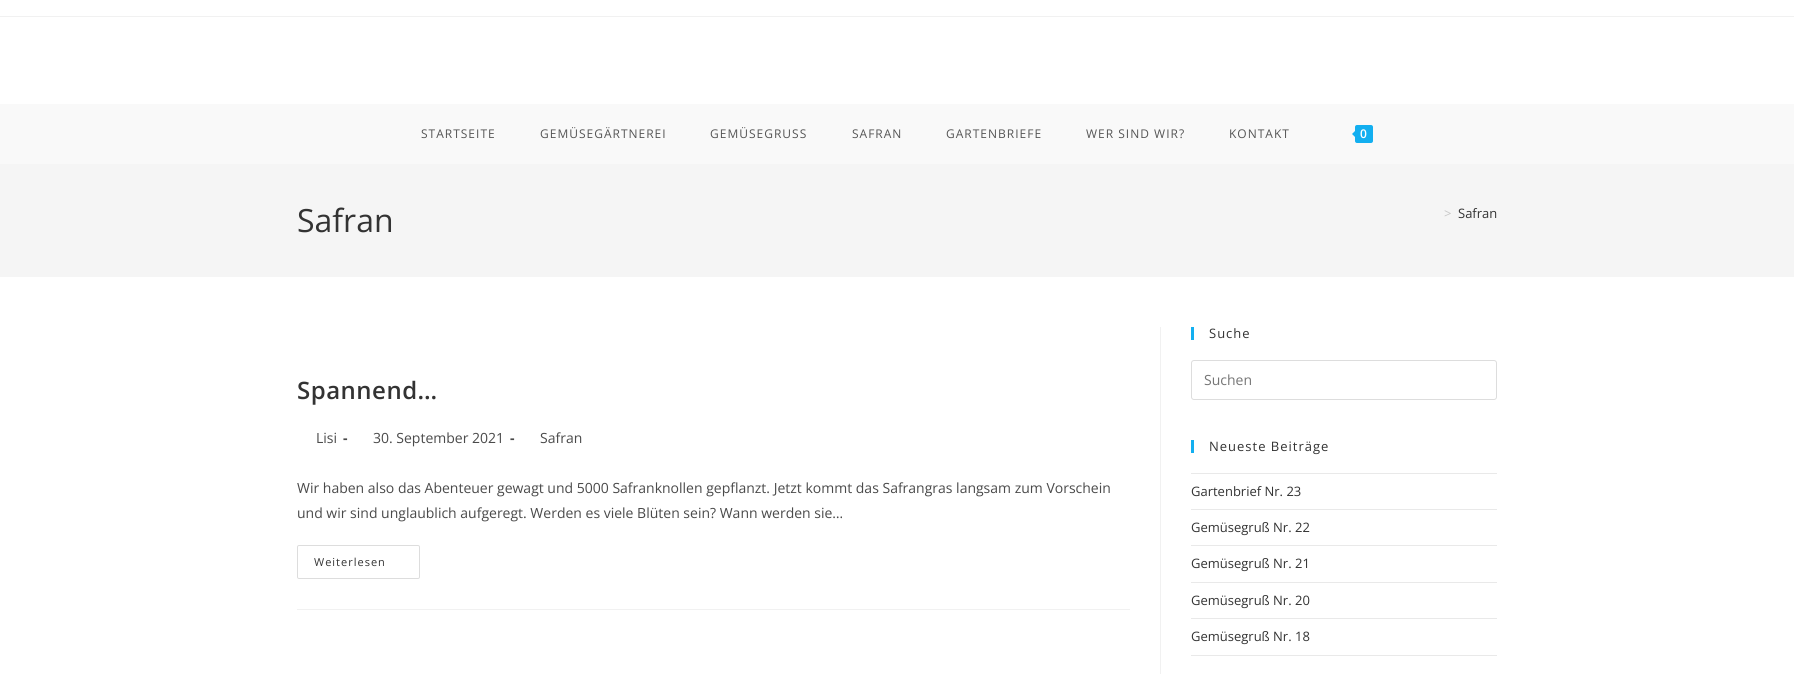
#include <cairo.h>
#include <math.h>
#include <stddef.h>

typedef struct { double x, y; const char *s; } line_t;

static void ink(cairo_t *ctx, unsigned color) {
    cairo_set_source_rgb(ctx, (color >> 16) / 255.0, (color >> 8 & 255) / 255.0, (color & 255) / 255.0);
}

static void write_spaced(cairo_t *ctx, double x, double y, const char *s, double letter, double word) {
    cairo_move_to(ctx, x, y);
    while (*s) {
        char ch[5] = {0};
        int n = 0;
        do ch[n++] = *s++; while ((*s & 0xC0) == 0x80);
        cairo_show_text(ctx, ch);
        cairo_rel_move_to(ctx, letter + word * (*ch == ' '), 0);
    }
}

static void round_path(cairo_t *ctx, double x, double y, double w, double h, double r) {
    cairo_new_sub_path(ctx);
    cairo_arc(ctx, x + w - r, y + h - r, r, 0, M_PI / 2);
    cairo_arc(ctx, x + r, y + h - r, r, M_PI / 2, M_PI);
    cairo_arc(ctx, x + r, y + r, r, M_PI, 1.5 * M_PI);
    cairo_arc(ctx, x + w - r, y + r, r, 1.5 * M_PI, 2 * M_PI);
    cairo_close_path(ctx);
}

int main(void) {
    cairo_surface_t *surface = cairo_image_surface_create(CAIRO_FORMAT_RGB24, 1794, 674);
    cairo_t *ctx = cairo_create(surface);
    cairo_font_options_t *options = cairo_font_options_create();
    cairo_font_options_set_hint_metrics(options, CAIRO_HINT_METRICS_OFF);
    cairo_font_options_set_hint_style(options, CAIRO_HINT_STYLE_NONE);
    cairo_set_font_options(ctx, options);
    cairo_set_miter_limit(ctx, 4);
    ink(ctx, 0xFFFFFF);
    cairo_paint(ctx);
    ink(ctx, 0xF1F1F1);
    cairo_rectangle(ctx, 0, 16, 1794, 1);
    cairo_fill(ctx);
    ink(ctx, 0xF9F9F9);
    cairo_rectangle(ctx, 0, 104, 1794, 60);
    cairo_fill(ctx);
    cairo_select_font_face(ctx, "Open Sans", CAIRO_FONT_SLANT_NORMAL, CAIRO_FONT_WEIGHT_NORMAL);
    cairo_set_font_size(ctx, 12);
    ink(ctx, 0x555555);
    {
        static const line_t items[] = {
            {421, 138, "STARTSEITE"},
            {540, 138, "GEMÜSEGÄRTNEREI"},
            {710, 138, "GEMÜSEGRUSS"},
            {852, 138, "SAFRAN"},
            {946, 138, "GARTENBRIEFE"},
            {1086, 138, "WER SIND WIR?"},
            {1229, 138, "KONTAKT"},
        };
        for (size_t i = 0; i < sizeof items / sizeof *items; i++) {
            write_spaced(ctx, items[i].x, items[i].y, items[i].s, 1, 0);
        }
    }
    ink(ctx, 0x13AFF0);
    round_path(ctx, 1355, 125, 18, 18, 2);
    cairo_fill(ctx);
    cairo_new_path(ctx);
    cairo_move_to(ctx, 1357, 129);
    cairo_line_to(ctx, 1357, 139);
    cairo_line_to(ctx, 1352, 134);
    cairo_close_path(ctx);
    cairo_fill(ctx);
    cairo_select_font_face(ctx, "Open Sans SemiBold", CAIRO_FONT_SLANT_NORMAL, CAIRO_FONT_WEIGHT_NORMAL);
    ink(ctx, 0xFFFFFF);
    write_spaced(ctx, 1360, 138, "0", 1, 0);
    ink(ctx, 0xF5F5F5);
    cairo_rectangle(ctx, 0, 164, 1794, 113);
    cairo_fill(ctx);
    cairo_select_font_face(ctx, "Open Sans", CAIRO_FONT_SLANT_NORMAL, CAIRO_FONT_WEIGHT_NORMAL);
    cairo_set_font_size(ctx, 32);
    ink(ctx, 0x333333);
    cairo_move_to(ctx, 297, 232);
    cairo_show_text(ctx, "Safran");
    cairo_set_font_size(ctx, 13);
    ink(ctx, 0xC6C6C6);
    cairo_move_to(ctx, 1444, 218);
    cairo_show_text(ctx, ">");
    ink(ctx, 0x333333);
    cairo_move_to(ctx, 1458, 218);
    cairo_show_text(ctx, "Safran");
    ink(ctx, 0xF1F1F1);
    cairo_rectangle(ctx, 1160, 327, 1, 347);
    cairo_fill(ctx);
    cairo_rectangle(ctx, 297, 609, 833, 1);
    cairo_fill(ctx);
    cairo_select_font_face(ctx, "Open Sans SemiBold", CAIRO_FONT_SLANT_NORMAL, CAIRO_FONT_WEIGHT_NORMAL);
    cairo_set_font_size(ctx, 24);
    ink(ctx, 0x333333);
    write_spaced(ctx, 297, 399, "Spannend…", 0.5, 0);
    cairo_select_font_face(ctx, "Open Sans", CAIRO_FONT_SLANT_NORMAL, CAIRO_FONT_WEIGHT_NORMAL);
    cairo_set_font_size(ctx, 14);
    ink(ctx, 0x4A4A4A);
    cairo_move_to(ctx, 316, 443);
    cairo_show_text(ctx, "Lisi");
    cairo_select_font_face(ctx, "Open Sans", CAIRO_FONT_SLANT_NORMAL, CAIRO_FONT_WEIGHT_BOLD);
    cairo_move_to(ctx, 343, 443);
    cairo_show_text(ctx, "-");
    cairo_select_font_face(ctx, "Open Sans", CAIRO_FONT_SLANT_NORMAL, CAIRO_FONT_WEIGHT_NORMAL);
    cairo_move_to(ctx, 373, 443);
    cairo_show_text(ctx, "30. September 2021");
    cairo_select_font_face(ctx, "Open Sans", CAIRO_FONT_SLANT_NORMAL, CAIRO_FONT_WEIGHT_BOLD);
    cairo_move_to(ctx, 510, 443);
    cairo_show_text(ctx, "-");
    cairo_select_font_face(ctx, "Open Sans", CAIRO_FONT_SLANT_NORMAL, CAIRO_FONT_WEIGHT_NORMAL);
    {
        static const line_t items[] = {
            {540, 443, "Safran"},
            {297, 493, "Wir haben also das Abenteuer gewagt und 5000 Safranknollen gepflanzt. Jetzt kommt das Safrangras langsam zum Vorschein"},
            {297, 518, "und wir sind unglaublich aufgeregt. Werden es viele Blüten sein? Wann werden sie…"},
        };
        for (size_t i = 0; i < sizeof items / sizeof *items; i++) {
            cairo_move_to(ctx, items[i].x, items[i].y);
            cairo_show_text(ctx, items[i].s);
        }
    }
    round_path(ctx, 297.5, 545.5, 122, 33, 1.5);
    ink(ctx, 0xDDDDDD);
    cairo_set_line_width(ctx, 1);
    cairo_stroke(ctx);
    cairo_set_font_size(ctx, 11);
    ink(ctx, 0x333333);
    write_spaced(ctx, 314, 566, "Weiterlesen", 1, 0);
    ink(ctx, 0x13AFF0);
    cairo_rectangle(ctx, 1191, 327, 3, 13);
    cairo_fill(ctx);
    cairo_set_font_size(ctx, 13);
    ink(ctx, 0x333333);
    write_spaced(ctx, 1209, 338, "Suche", 1, 0);
    round_path(ctx, 1191.5, 360.5, 305, 39, 2.5);
    ink(ctx, 0xDDDDDD);
    cairo_stroke(ctx);
    cairo_set_font_size(ctx, 14);
    ink(ctx, 0x757575);
    cairo_move_to(ctx, 1204, 385);
    cairo_show_text(ctx, "Suchen");
    ink(ctx, 0x13AFF0);
    cairo_rectangle(ctx, 1191, 440, 3, 13);
    cairo_fill(ctx);
    cairo_set_font_size(ctx, 13);
    ink(ctx, 0x333333);
    write_spaced(ctx, 1209, 451, "Neueste Beiträge", 1, 0);
    ink(ctx, 0xE9E9E9);
    cairo_rectangle(ctx, 1191, 473, 306, 1);
    cairo_fill(ctx);
    cairo_rectangle(ctx, 1191, 509, 306, 1);
    cairo_fill(ctx);
    ink(ctx, 0x333333);
    cairo_move_to(ctx, 1191, 496);
    cairo_show_text(ctx, "Gartenbrief Nr. 23");
    ink(ctx, 0xE9E9E9);
    cairo_rectangle(ctx, 1191, 545, 306, 1);
    cairo_fill(ctx);
    ink(ctx, 0x333333);
    cairo_move_to(ctx, 1191, 532);
    cairo_show_text(ctx, "Gemüsegruß Nr. 22");
    ink(ctx, 0xE9E9E9);
    cairo_rectangle(ctx, 1191, 582, 306, 1);
    cairo_fill(ctx);
    ink(ctx, 0x333333);
    cairo_move_to(ctx, 1191, 568);
    cairo_show_text(ctx, "Gemüsegruß Nr. 21");
    ink(ctx, 0xE9E9E9);
    cairo_rectangle(ctx, 1191, 618, 306, 1);
    cairo_fill(ctx);
    ink(ctx, 0x333333);
    cairo_move_to(ctx, 1191, 605);
    cairo_show_text(ctx, "Gemüsegruß Nr. 20");
    ink(ctx, 0xE9E9E9);
    cairo_rectangle(ctx, 1191, 655, 306, 1);
    cairo_fill(ctx);
    ink(ctx, 0x333333);
    cairo_move_to(ctx, 1191, 641);
    cairo_show_text(ctx, "Gemüsegruß Nr. 18");
    cairo_surface_write_to_png(surface, "image.png");
    cairo_font_options_destroy(options);
    cairo_destroy(ctx);
    cairo_surface_destroy(surface);
    return 0;
}
